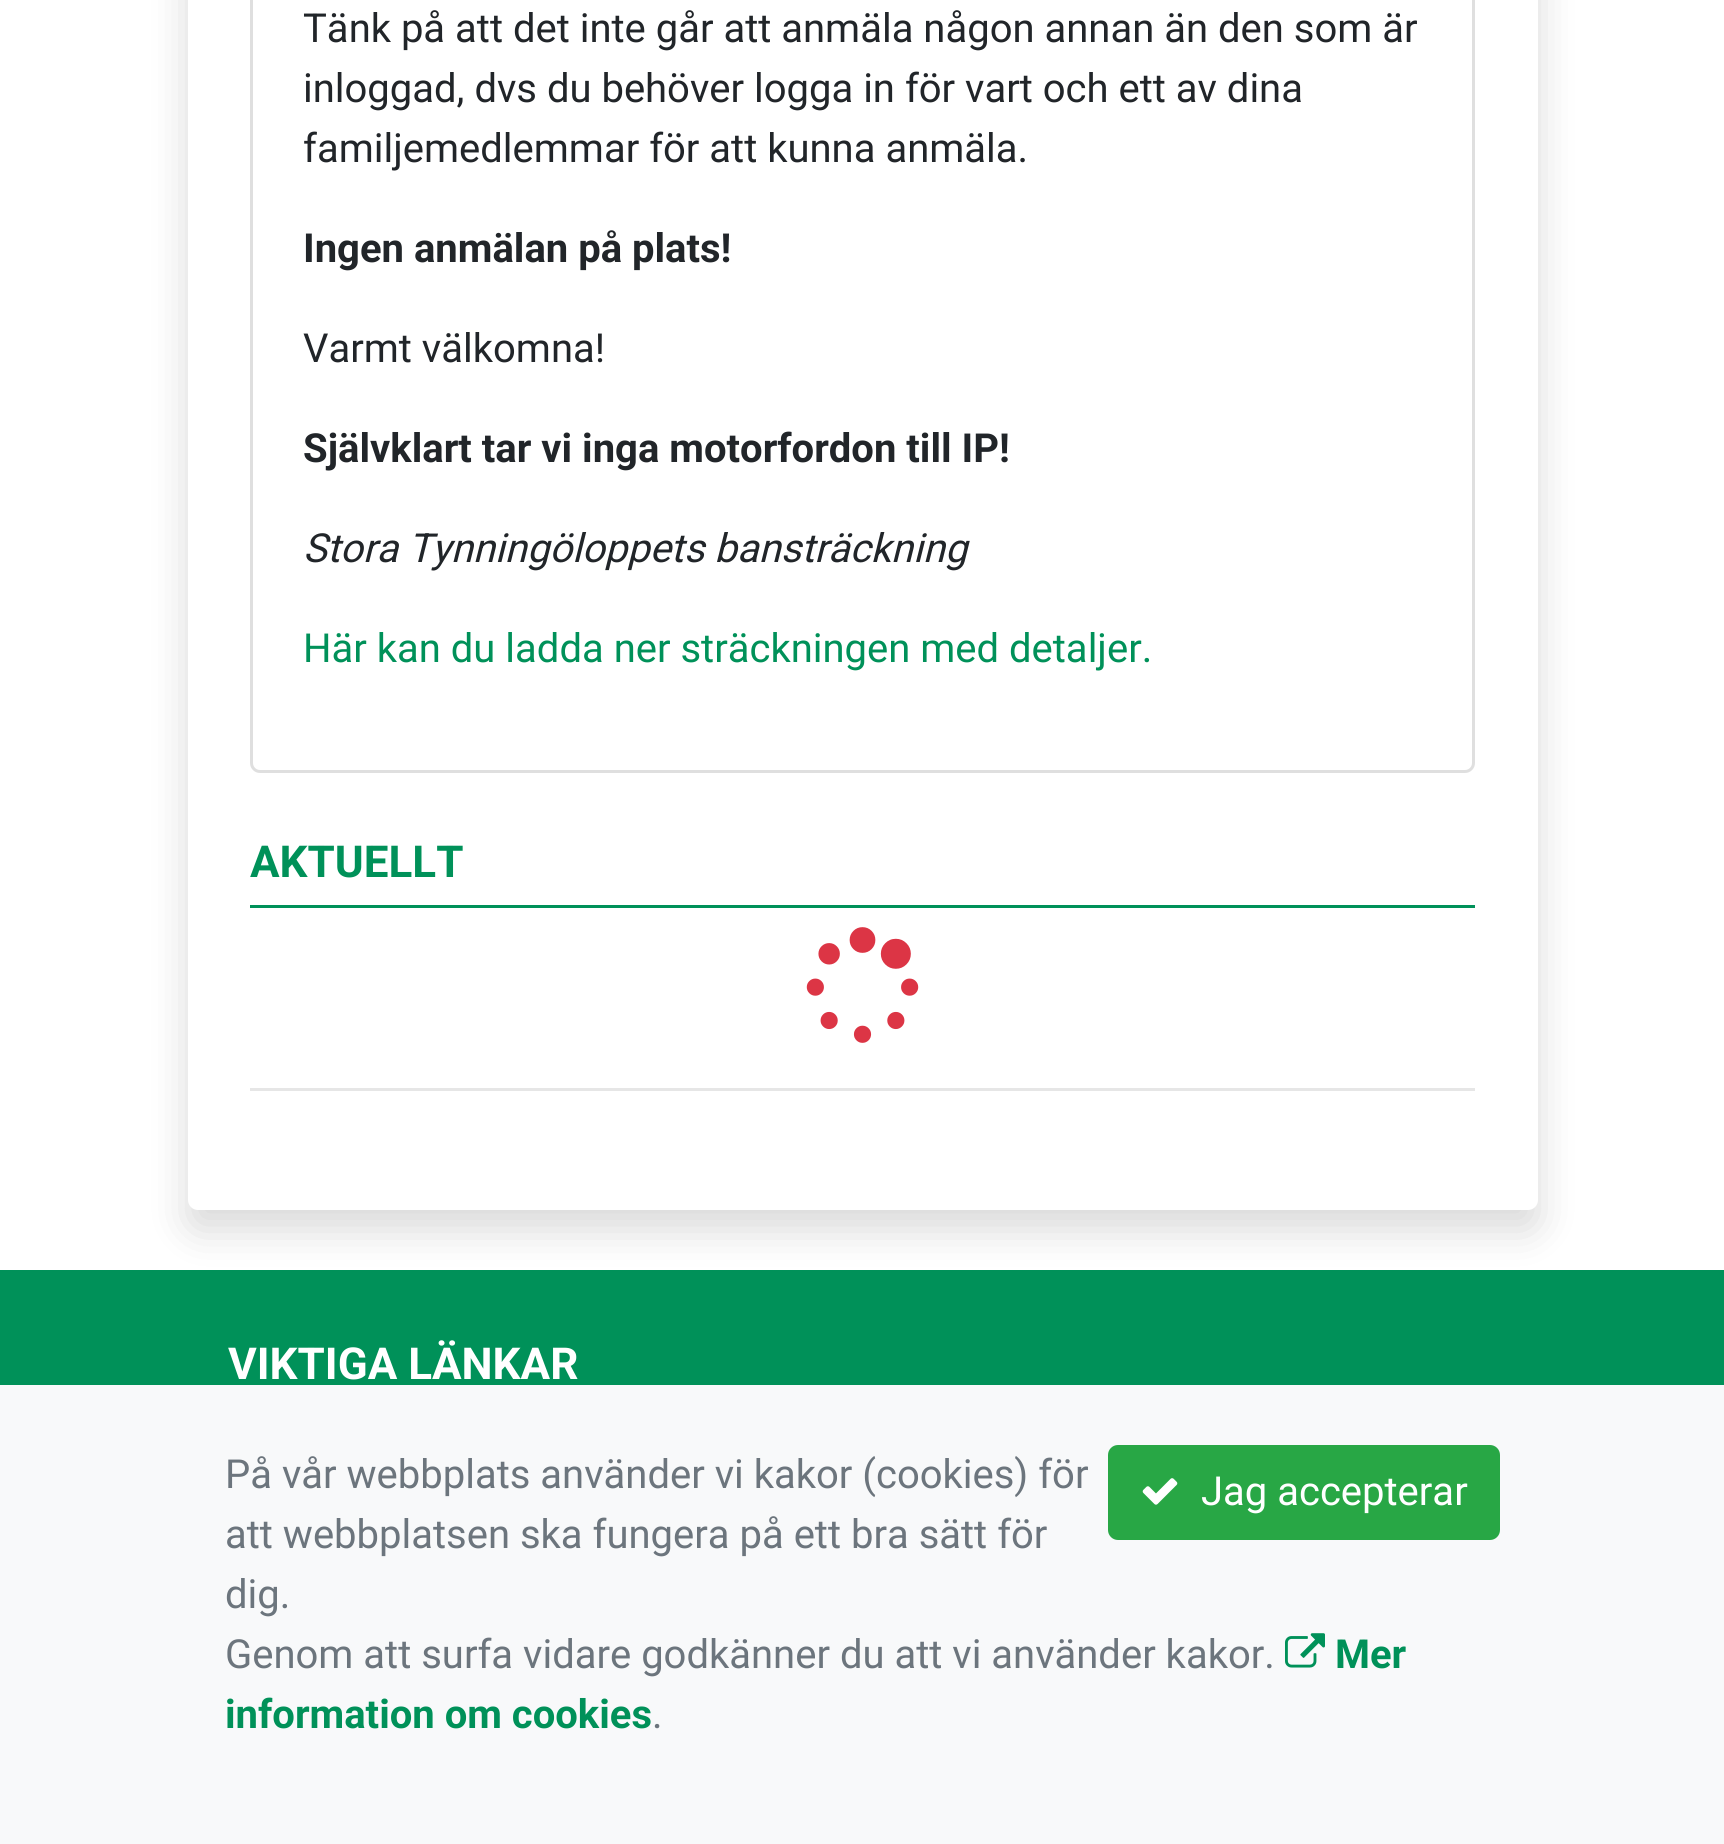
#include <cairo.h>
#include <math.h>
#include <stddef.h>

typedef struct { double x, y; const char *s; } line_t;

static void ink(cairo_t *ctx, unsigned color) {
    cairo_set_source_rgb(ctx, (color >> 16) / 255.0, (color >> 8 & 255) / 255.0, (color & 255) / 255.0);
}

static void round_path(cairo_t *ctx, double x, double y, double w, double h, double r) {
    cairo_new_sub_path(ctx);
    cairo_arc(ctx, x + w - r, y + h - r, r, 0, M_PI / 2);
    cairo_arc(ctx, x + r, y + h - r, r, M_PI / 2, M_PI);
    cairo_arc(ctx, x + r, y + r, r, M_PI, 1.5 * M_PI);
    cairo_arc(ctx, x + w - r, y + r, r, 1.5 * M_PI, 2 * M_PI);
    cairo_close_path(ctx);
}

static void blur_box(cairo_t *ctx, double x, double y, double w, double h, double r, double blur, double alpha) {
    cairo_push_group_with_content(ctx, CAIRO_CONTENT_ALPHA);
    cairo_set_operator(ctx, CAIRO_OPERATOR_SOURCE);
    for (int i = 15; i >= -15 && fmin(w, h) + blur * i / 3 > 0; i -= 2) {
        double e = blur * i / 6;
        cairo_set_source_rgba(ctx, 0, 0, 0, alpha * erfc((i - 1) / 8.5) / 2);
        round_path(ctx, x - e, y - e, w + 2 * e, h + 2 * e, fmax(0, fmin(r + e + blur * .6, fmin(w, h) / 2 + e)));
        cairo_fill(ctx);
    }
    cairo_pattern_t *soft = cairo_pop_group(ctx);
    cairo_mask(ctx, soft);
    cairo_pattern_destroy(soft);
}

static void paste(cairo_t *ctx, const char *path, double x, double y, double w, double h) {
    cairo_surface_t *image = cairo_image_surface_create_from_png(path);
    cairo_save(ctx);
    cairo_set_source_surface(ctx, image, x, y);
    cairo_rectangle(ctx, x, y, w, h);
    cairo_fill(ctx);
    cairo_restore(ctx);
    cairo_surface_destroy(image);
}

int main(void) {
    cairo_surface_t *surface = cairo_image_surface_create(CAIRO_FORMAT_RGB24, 1724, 1844);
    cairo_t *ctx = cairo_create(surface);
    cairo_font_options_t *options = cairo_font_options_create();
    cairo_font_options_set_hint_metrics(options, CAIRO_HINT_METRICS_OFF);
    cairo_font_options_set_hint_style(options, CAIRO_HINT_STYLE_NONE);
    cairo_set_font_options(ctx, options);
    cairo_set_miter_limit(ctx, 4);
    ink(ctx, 0xFFFFFF);
    cairo_paint(ctx);
    ink(ctx, 0x000000);
    blur_box(ctx, 188, -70, 1350, 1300, 10, 20, 0.15);
    ink(ctx, 0xFFFFFF);
    round_path(ctx, 188, -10, 1350, 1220, 10);
    cairo_fill(ctx);
    round_path(ctx, 251.5, -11.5, 1222, 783, 8.5);
    ink(ctx, 0xDFDFDF);
    cairo_set_line_width(ctx, 3);
    cairo_stroke(ctx);
    cairo_select_font_face(ctx, "Roboto", CAIRO_FONT_SLANT_NORMAL, CAIRO_FONT_WEIGHT_NORMAL);
    cairo_set_font_size(ctx, 40);
    ink(ctx, 0x212529);
    {
        static const line_t items[] = {
            {303, 42, "Tänk på att det inte går att anmäla någon annan än den som är"},
            {303, 102, "inloggad, dvs du behöver logga in för vart och ett av dina"},
            {303, 162, "familjemedlemmar för att kunna anmäla."},
        };
        for (size_t i = 0; i < sizeof items / sizeof *items; i++) {
            cairo_move_to(ctx, items[i].x, items[i].y);
            cairo_show_text(ctx, items[i].s);
        }
    }
    cairo_select_font_face(ctx, "Roboto", CAIRO_FONT_SLANT_NORMAL, CAIRO_FONT_WEIGHT_BOLD);
    cairo_move_to(ctx, 303, 262);
    cairo_show_text(ctx, "Ingen anmälan på plats!");
    cairo_select_font_face(ctx, "Roboto", CAIRO_FONT_SLANT_NORMAL, CAIRO_FONT_WEIGHT_NORMAL);
    cairo_move_to(ctx, 303, 362);
    cairo_show_text(ctx, "Varmt välkomna!");
    cairo_select_font_face(ctx, "Roboto", CAIRO_FONT_SLANT_NORMAL, CAIRO_FONT_WEIGHT_BOLD);
    cairo_move_to(ctx, 303, 462);
    cairo_show_text(ctx, "Självklart tar vi inga motorfordon till IP!");
    cairo_select_font_face(ctx, "Roboto", CAIRO_FONT_SLANT_ITALIC, CAIRO_FONT_WEIGHT_NORMAL);
    cairo_move_to(ctx, 303, 562);
    cairo_show_text(ctx, "Stora Tynningöloppets bansträckning");
    cairo_select_font_face(ctx, "Roboto", CAIRO_FONT_SLANT_NORMAL, CAIRO_FONT_WEIGHT_NORMAL);
    ink(ctx, 0x009159);
    cairo_move_to(ctx, 303, 662);
    cairo_show_text(ctx, "Här kan du ladda ner sträckningen med detaljer.");
    cairo_rectangle(ctx, 250, 905, 1225, 3);
    cairo_fill(ctx);
    cairo_select_font_face(ctx, "Roboto", CAIRO_FONT_SLANT_NORMAL, CAIRO_FONT_WEIGHT_BOLD);
    cairo_set_font_size(ctx, 44);
    cairo_move_to(ctx, 250, 877);
    cairo_show_text(ctx, "AKTUELLT");
    paste(ctx, "media/1.png", 806, 927, 113, 116);
    ink(ctx, 0xE6E6E6);
    cairo_rectangle(ctx, 250, 1088, 1225, 3);
    cairo_fill(ctx);
    ink(ctx, 0x009159);
    cairo_rectangle(ctx, 0, 1270, 1724, 115);
    cairo_fill(ctx);
    ink(ctx, 0xFFFFFF);
    cairo_move_to(ctx, 228, 1379);
    cairo_show_text(ctx, "VIKTIGA LÄNKAR");
    ink(ctx, 0xF8F9FA);
    cairo_rectangle(ctx, 0, 1385, 1724, 459);
    cairo_fill(ctx);
    cairo_select_font_face(ctx, "Roboto", CAIRO_FONT_SLANT_NORMAL, CAIRO_FONT_WEIGHT_NORMAL);
    cairo_set_font_size(ctx, 40);
    ink(ctx, 0x6C757D);
    {
        static const line_t items[] = {
            {225, 1488, "På vår webbplats använder vi kakor (cookies) för"},
            {225, 1548, "att webbplatsen ska fungera på ett bra sätt för"},
            {225, 1608, "dig."},
            {225, 1668, "Genom att surfa vidare godkänner du att vi använder kakor."},
        };
        for (size_t i = 0; i < sizeof items / sizeof *items; i++) {
            cairo_move_to(ctx, items[i].x, items[i].y);
            cairo_show_text(ctx, items[i].s);
        }
    }
    paste(ctx, "media/2.png", 1285, 1633, 40, 35);
    cairo_select_font_face(ctx, "Roboto", CAIRO_FONT_SLANT_NORMAL, CAIRO_FONT_WEIGHT_BOLD);
    ink(ctx, 0x009159);
    cairo_move_to(ctx, 1335, 1668);
    cairo_show_text(ctx, "Mer");
    cairo_move_to(ctx, 225, 1728);
    cairo_show_text(ctx, "information om cookies");
    cairo_select_font_face(ctx, "Roboto", CAIRO_FONT_SLANT_NORMAL, CAIRO_FONT_WEIGHT_NORMAL);
    ink(ctx, 0x6C757D);
    cairo_move_to(ctx, 652, 1728);
    cairo_show_text(ctx, ".");
    ink(ctx, 0x28A745);
    round_path(ctx, 1109.5, 1446.5, 389, 92, 8.5);
    cairo_fill_preserve(ctx);
    cairo_stroke(ctx);
    paste(ctx, "media/3.png", 1142, 1478, 36, 27);
    ink(ctx, 0xFFFFFF);
    cairo_move_to(ctx, 1201, 1505);
    cairo_show_text(ctx, "Jag accepterar");
    cairo_surface_write_to_png(surface, "image.png");
    cairo_font_options_destroy(options);
    cairo_destroy(ctx);
    cairo_surface_destroy(surface);
    return 0;
}
